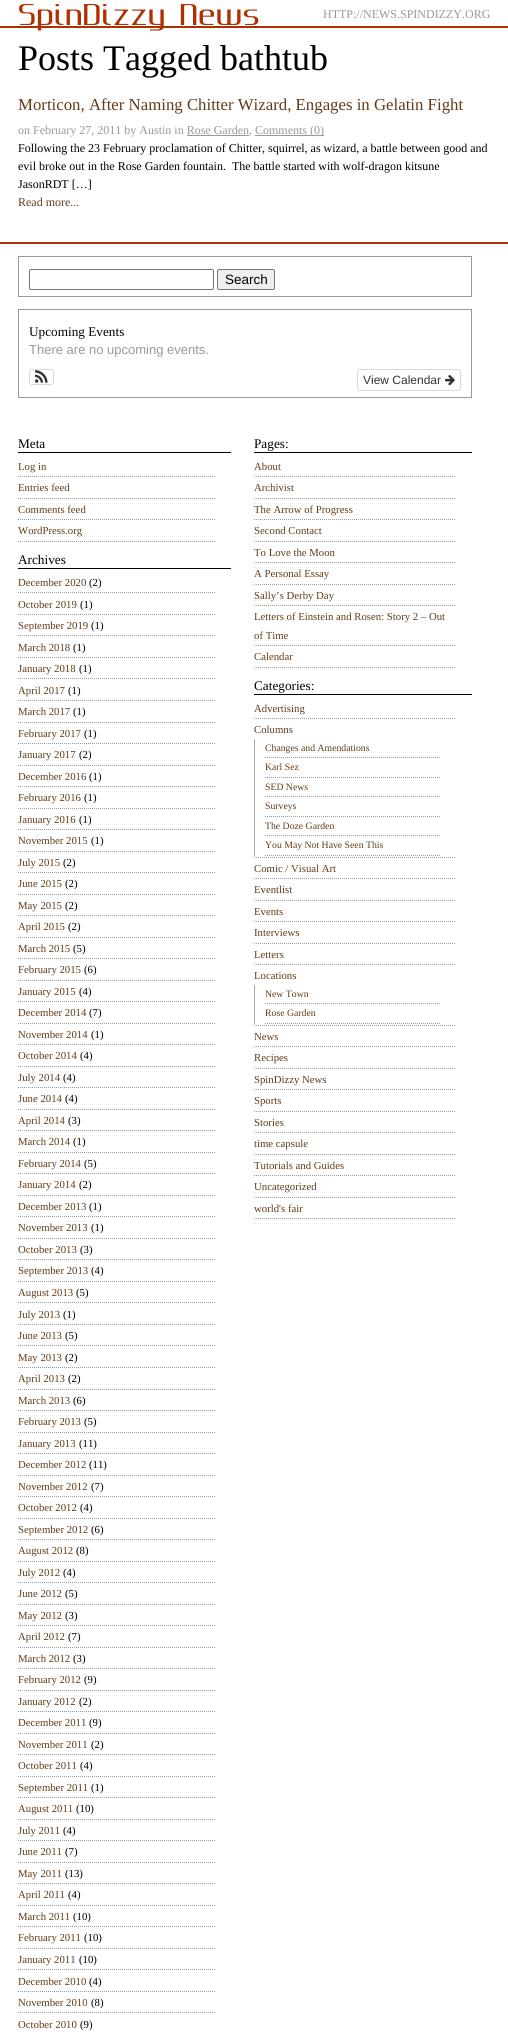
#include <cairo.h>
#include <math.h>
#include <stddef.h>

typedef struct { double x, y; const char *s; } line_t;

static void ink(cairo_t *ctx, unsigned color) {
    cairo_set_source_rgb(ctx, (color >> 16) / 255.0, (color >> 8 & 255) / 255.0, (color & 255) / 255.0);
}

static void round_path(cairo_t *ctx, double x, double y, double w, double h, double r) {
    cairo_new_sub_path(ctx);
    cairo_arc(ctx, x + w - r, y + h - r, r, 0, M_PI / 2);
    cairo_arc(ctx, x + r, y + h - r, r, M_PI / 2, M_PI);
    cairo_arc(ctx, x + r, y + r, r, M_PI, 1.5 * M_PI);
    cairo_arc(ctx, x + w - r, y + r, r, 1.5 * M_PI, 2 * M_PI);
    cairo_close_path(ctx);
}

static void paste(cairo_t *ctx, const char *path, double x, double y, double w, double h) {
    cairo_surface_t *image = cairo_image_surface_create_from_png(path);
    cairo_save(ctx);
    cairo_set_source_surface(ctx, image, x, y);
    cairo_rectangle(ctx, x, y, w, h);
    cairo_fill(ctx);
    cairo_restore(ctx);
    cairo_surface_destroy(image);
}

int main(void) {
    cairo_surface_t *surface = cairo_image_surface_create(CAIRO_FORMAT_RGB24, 508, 2032);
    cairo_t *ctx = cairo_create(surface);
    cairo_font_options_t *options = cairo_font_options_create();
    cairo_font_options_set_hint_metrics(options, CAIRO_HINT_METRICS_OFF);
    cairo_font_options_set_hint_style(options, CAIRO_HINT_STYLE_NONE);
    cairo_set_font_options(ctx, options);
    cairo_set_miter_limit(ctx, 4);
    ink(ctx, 0xFFFFFF);
    cairo_paint(ctx);
    ink(ctx, 0xAE3000);
    cairo_rectangle(ctx, 0, 26, 508, 2);
    cairo_fill(ctx);
    cairo_select_font_face(ctx, "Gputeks", CAIRO_FONT_SLANT_NORMAL, CAIRO_FONT_WEIGHT_BOLD);
    cairo_set_font_size(ctx, 26.5);
    cairo_move_to(ctx, 18, 25);
    cairo_show_text(ctx, "SpinDizzy News");
    cairo_select_font_face(ctx, "Liberation Serif", CAIRO_FONT_SLANT_NORMAL, CAIRO_FONT_WEIGHT_NORMAL);
    cairo_set_font_size(ctx, 12);
    ink(ctx, 0x999999);
    cairo_move_to(ctx, 323, 18);
    cairo_show_text(ctx, "HTTP://NEWS.SPINDIZZY.ORG");
    cairo_set_font_size(ctx, 36);
    ink(ctx, 0x000000);
    cairo_move_to(ctx, 18, 70);
    cairo_show_text(ctx, "Posts Tagged bathtub");
    cairo_set_font_size(ctx, 16.8);
    ink(ctx, 0x633B18);
    cairo_move_to(ctx, 18, 110);
    cairo_show_text(ctx, "Morticon, After Naming Chitter Wizard, Engages in Gelatin Fight");
    cairo_set_font_size(ctx, 12);
    ink(ctx, 0x999999);
    cairo_move_to(ctx, 18, 134);
    cairo_show_text(ctx, "on February 27, 2011 by Austin in Rose Garden,");
    cairo_rectangle(ctx, 255, 135, 69, 1);
    cairo_fill(ctx);
    cairo_move_to(ctx, 255, 134);
    cairo_show_text(ctx, "Comments (0)");
    cairo_rectangle(ctx, 187, 135, 62, 1);
    cairo_fill(ctx);
    ink(ctx, 0x000000);
    {
        static const line_t items[] = {
            {18, 152, "Following the 23 February proclamation of Chitter, squirrel, as wizard, a battle between good and"},
            {18, 170, "evil broke out in the Rose Garden fountain.  The battle started with wolf-dragon kitsune"},
            {18, 188, "JasonRDT […]"},
        };
        for (size_t i = 0; i < sizeof items / sizeof *items; i++) {
            cairo_move_to(ctx, items[i].x, items[i].y);
            cairo_show_text(ctx, items[i].s);
        }
    }
    ink(ctx, 0x633B18);
    cairo_move_to(ctx, 18, 206);
    cairo_show_text(ctx, "Read more...");
    ink(ctx, 0xAE3000);
    cairo_rectangle(ctx, 0, 242, 508, 2);
    cairo_fill(ctx);
    cairo_rectangle(ctx, 18.5, 256.5, 453, 40);
    ink(ctx, 0x999999);
    cairo_set_line_width(ctx, 1);
    cairo_stroke(ctx);
    round_path(ctx, 29.5, 269.5, 184, 20, 1.5);
    ink(ctx, 0x767676);
    cairo_stroke(ctx);
    ink(ctx, 0xEFEFEF);
    round_path(ctx, 217.5, 269.5, 57, 20, 1.5);
    cairo_fill_preserve(ctx);
    ink(ctx, 0x767676);
    cairo_stroke(ctx);
    cairo_select_font_face(ctx, "Liberation Sans", CAIRO_FONT_SLANT_NORMAL, CAIRO_FONT_WEIGHT_NORMAL);
    cairo_set_font_size(ctx, 13.5);
    ink(ctx, 0x000000);
    cairo_move_to(ctx, 225, 284);
    cairo_show_text(ctx, "Search");
    cairo_rectangle(ctx, 18.5, 309.5, 453, 88);
    ink(ctx, 0x999999);
    cairo_stroke(ctx);
    cairo_select_font_face(ctx, "Liberation Serif", CAIRO_FONT_SLANT_NORMAL, CAIRO_FONT_WEIGHT_NORMAL);
    cairo_set_font_size(ctx, 13.25);
    ink(ctx, 0x000000);
    cairo_move_to(ctx, 29, 336);
    cairo_show_text(ctx, "Upcoming Events");
    cairo_select_font_face(ctx, "Liberation Sans", CAIRO_FONT_SLANT_NORMAL, CAIRO_FONT_WEIGHT_NORMAL);
    cairo_set_font_size(ctx, 13);
    ink(ctx, 0x999999);
    cairo_move_to(ctx, 29, 354);
    cairo_show_text(ctx, "There are no upcoming events.");
    round_path(ctx, 29.5, 369.5, 24, 15, 2.5);
    ink(ctx, 0xD9D9D9);
    cairo_stroke(ctx);
    paste(ctx, "media/1.png", 35, 370, 13, 13);
    round_path(ctx, 357.5, 369.5, 103, 21, 2.5);
    cairo_stroke(ctx);
    cairo_set_font_size(ctx, 12);
    ink(ctx, 0x333333);
    cairo_move_to(ctx, 363, 384);
    cairo_show_text(ctx, "View Calendar");
    paste(ctx, "media/2.png", 445, 375, 10, 11);
    ink(ctx, 0x000000);
    cairo_rectangle(ctx, 18, 452, 213, 1);
    cairo_fill(ctx);
    cairo_select_font_face(ctx, "Liberation Serif", CAIRO_FONT_SLANT_NORMAL, CAIRO_FONT_WEIGHT_NORMAL);
    cairo_set_font_size(ctx, 13.25);
    cairo_move_to(ctx, 18, 448);
    cairo_show_text(ctx, "Meta");
    cairo_new_path(ctx);
    cairo_move_to(ctx, 18, 476.5);
    cairo_line_to(ctx, 215, 476.5);
    ink(ctx, 0x999999);
    cairo_set_dash(ctx, (double[]){1, 1}, 2, 0);
    cairo_stroke(ctx);
    cairo_set_font_size(ctx, 10.75);
    ink(ctx, 0x633B18);
    cairo_move_to(ctx, 18, 470);
    cairo_show_text(ctx, "Log in");
    cairo_new_path(ctx);
    cairo_move_to(ctx, 18, 498.5);
    cairo_line_to(ctx, 215, 498.5);
    ink(ctx, 0x999999);
    cairo_stroke(ctx);
    ink(ctx, 0x633B18);
    cairo_move_to(ctx, 18, 491);
    cairo_show_text(ctx, "Entries feed");
    cairo_new_path(ctx);
    cairo_move_to(ctx, 18, 519.5);
    cairo_line_to(ctx, 215, 519.5);
    ink(ctx, 0x999999);
    cairo_stroke(ctx);
    ink(ctx, 0x633B18);
    cairo_move_to(ctx, 18, 513);
    cairo_show_text(ctx, "Comments feed");
    cairo_new_path(ctx);
    cairo_move_to(ctx, 18, 541.5);
    cairo_line_to(ctx, 215, 541.5);
    ink(ctx, 0x999999);
    cairo_stroke(ctx);
    ink(ctx, 0x633B18);
    cairo_move_to(ctx, 18, 534);
    cairo_show_text(ctx, "WordPress.org");
    ink(ctx, 0x000000);
    cairo_rectangle(ctx, 18, 568, 213, 1);
    cairo_fill(ctx);
    cairo_set_font_size(ctx, 13.25);
    cairo_move_to(ctx, 18, 564);
    cairo_show_text(ctx, "Archives");
    cairo_new_path(ctx);
    cairo_move_to(ctx, 18, 592.5);
    cairo_line_to(ctx, 215, 592.5);
    ink(ctx, 0x999999);
    cairo_stroke(ctx);
    cairo_set_font_size(ctx, 10.75);
    ink(ctx, 0x633B18);
    cairo_move_to(ctx, 18, 586);
    cairo_show_text(ctx, "December 2020");
    ink(ctx, 0x000000);
    cairo_move_to(ctx, 89, 586);
    cairo_show_text(ctx, "(2)");
    cairo_new_path(ctx);
    cairo_move_to(ctx, 18, 614.5);
    cairo_line_to(ctx, 215, 614.5);
    ink(ctx, 0x999999);
    cairo_stroke(ctx);
    ink(ctx, 0x633B18);
    cairo_move_to(ctx, 18, 608);
    cairo_show_text(ctx, "October 2019");
    ink(ctx, 0x000000);
    cairo_move_to(ctx, 80, 608);
    cairo_show_text(ctx, "(1)");
    cairo_new_path(ctx);
    cairo_move_to(ctx, 18, 635.5);
    cairo_line_to(ctx, 215, 635.5);
    ink(ctx, 0x999999);
    cairo_stroke(ctx);
    ink(ctx, 0x633B18);
    cairo_move_to(ctx, 18, 629);
    cairo_show_text(ctx, "September 2019");
    ink(ctx, 0x000000);
    cairo_move_to(ctx, 91, 629);
    cairo_show_text(ctx, "(1)");
    cairo_new_path(ctx);
    cairo_move_to(ctx, 18, 657.5);
    cairo_line_to(ctx, 215, 657.5);
    ink(ctx, 0x999999);
    cairo_stroke(ctx);
    ink(ctx, 0x633B18);
    cairo_move_to(ctx, 18, 651);
    cairo_show_text(ctx, "March 2018");
    ink(ctx, 0x000000);
    cairo_move_to(ctx, 73, 651);
    cairo_show_text(ctx, "(1)");
    cairo_new_path(ctx);
    cairo_move_to(ctx, 18, 678.5);
    cairo_line_to(ctx, 215, 678.5);
    ink(ctx, 0x999999);
    cairo_stroke(ctx);
    ink(ctx, 0x633B18);
    cairo_move_to(ctx, 18, 672);
    cairo_show_text(ctx, "January 2018");
    ink(ctx, 0x000000);
    cairo_move_to(ctx, 79, 672);
    cairo_show_text(ctx, "(1)");
    cairo_new_path(ctx);
    cairo_move_to(ctx, 18, 700.5);
    cairo_line_to(ctx, 215, 700.5);
    ink(ctx, 0x999999);
    cairo_stroke(ctx);
    ink(ctx, 0x633B18);
    cairo_move_to(ctx, 18, 694);
    cairo_show_text(ctx, "April 2017");
    ink(ctx, 0x000000);
    cairo_move_to(ctx, 68, 694);
    cairo_show_text(ctx, "(1)");
    cairo_new_path(ctx);
    cairo_move_to(ctx, 18, 722.5);
    cairo_line_to(ctx, 215, 722.5);
    ink(ctx, 0x999999);
    cairo_stroke(ctx);
    ink(ctx, 0x633B18);
    cairo_move_to(ctx, 18, 715);
    cairo_show_text(ctx, "March 2017");
    ink(ctx, 0x000000);
    cairo_move_to(ctx, 73, 715);
    cairo_show_text(ctx, "(1)");
    cairo_new_path(ctx);
    cairo_move_to(ctx, 18, 743.5);
    cairo_line_to(ctx, 215, 743.5);
    ink(ctx, 0x999999);
    cairo_stroke(ctx);
    ink(ctx, 0x633B18);
    cairo_move_to(ctx, 18, 737);
    cairo_show_text(ctx, "February 2017");
    ink(ctx, 0x000000);
    cairo_move_to(ctx, 84, 737);
    cairo_show_text(ctx, "(1)");
    cairo_new_path(ctx);
    cairo_move_to(ctx, 18, 765.5);
    cairo_line_to(ctx, 215, 765.5);
    ink(ctx, 0x999999);
    cairo_stroke(ctx);
    ink(ctx, 0x633B18);
    cairo_move_to(ctx, 18, 758);
    cairo_show_text(ctx, "January 2017");
    ink(ctx, 0x000000);
    cairo_move_to(ctx, 79, 758);
    cairo_show_text(ctx, "(2)");
    cairo_new_path(ctx);
    cairo_move_to(ctx, 18, 786.5);
    cairo_line_to(ctx, 215, 786.5);
    ink(ctx, 0x999999);
    cairo_stroke(ctx);
    ink(ctx, 0x633B18);
    cairo_move_to(ctx, 18, 780);
    cairo_show_text(ctx, "December 2016");
    ink(ctx, 0x000000);
    cairo_move_to(ctx, 89, 780);
    cairo_show_text(ctx, "(1)");
    cairo_new_path(ctx);
    cairo_move_to(ctx, 18, 808.5);
    cairo_line_to(ctx, 215, 808.5);
    ink(ctx, 0x999999);
    cairo_stroke(ctx);
    ink(ctx, 0x633B18);
    cairo_move_to(ctx, 18, 801);
    cairo_show_text(ctx, "February 2016");
    ink(ctx, 0x000000);
    cairo_move_to(ctx, 84, 801);
    cairo_show_text(ctx, "(1)");
    cairo_new_path(ctx);
    cairo_move_to(ctx, 18, 829.5);
    cairo_line_to(ctx, 215, 829.5);
    ink(ctx, 0x999999);
    cairo_stroke(ctx);
    ink(ctx, 0x633B18);
    cairo_move_to(ctx, 18, 823);
    cairo_show_text(ctx, "January 2016");
    ink(ctx, 0x000000);
    cairo_move_to(ctx, 79, 823);
    cairo_show_text(ctx, "(1)");
    cairo_new_path(ctx);
    cairo_move_to(ctx, 18, 851.5);
    cairo_line_to(ctx, 215, 851.5);
    ink(ctx, 0x999999);
    cairo_stroke(ctx);
    ink(ctx, 0x633B18);
    cairo_move_to(ctx, 18, 844);
    cairo_show_text(ctx, "November 2015");
    ink(ctx, 0x000000);
    cairo_move_to(ctx, 91, 844);
    cairo_show_text(ctx, "(1)");
    cairo_new_path(ctx);
    cairo_move_to(ctx, 18, 872.5);
    cairo_line_to(ctx, 215, 872.5);
    ink(ctx, 0x999999);
    cairo_stroke(ctx);
    ink(ctx, 0x633B18);
    cairo_move_to(ctx, 18, 866);
    cairo_show_text(ctx, "July 2015");
    ink(ctx, 0x000000);
    cairo_move_to(ctx, 63, 866);
    cairo_show_text(ctx, "(2)");
    cairo_new_path(ctx);
    cairo_move_to(ctx, 18, 894.5);
    cairo_line_to(ctx, 215, 894.5);
    ink(ctx, 0x999999);
    cairo_stroke(ctx);
    ink(ctx, 0x633B18);
    cairo_move_to(ctx, 18, 887);
    cairo_show_text(ctx, "June 2015");
    ink(ctx, 0x000000);
    cairo_move_to(ctx, 65, 887);
    cairo_show_text(ctx, "(2)");
    cairo_new_path(ctx);
    cairo_move_to(ctx, 18, 915.5);
    cairo_line_to(ctx, 215, 915.5);
    ink(ctx, 0x999999);
    cairo_stroke(ctx);
    ink(ctx, 0x633B18);
    cairo_move_to(ctx, 18, 909);
    cairo_show_text(ctx, "May 2015");
    ink(ctx, 0x000000);
    cairo_move_to(ctx, 65, 909);
    cairo_show_text(ctx, "(2)");
    cairo_new_path(ctx);
    cairo_move_to(ctx, 18, 937.5);
    cairo_line_to(ctx, 215, 937.5);
    ink(ctx, 0x999999);
    cairo_stroke(ctx);
    ink(ctx, 0x633B18);
    cairo_move_to(ctx, 18, 930);
    cairo_show_text(ctx, "April 2015");
    ink(ctx, 0x000000);
    cairo_move_to(ctx, 68, 930);
    cairo_show_text(ctx, "(2)");
    cairo_new_path(ctx);
    cairo_move_to(ctx, 18, 958.5);
    cairo_line_to(ctx, 215, 958.5);
    ink(ctx, 0x999999);
    cairo_stroke(ctx);
    ink(ctx, 0x633B18);
    cairo_move_to(ctx, 18, 952);
    cairo_show_text(ctx, "March 2015");
    ink(ctx, 0x000000);
    cairo_move_to(ctx, 73, 952);
    cairo_show_text(ctx, "(5)");
    cairo_new_path(ctx);
    cairo_move_to(ctx, 18, 980.5);
    cairo_line_to(ctx, 215, 980.5);
    ink(ctx, 0x999999);
    cairo_stroke(ctx);
    ink(ctx, 0x633B18);
    cairo_move_to(ctx, 18, 973);
    cairo_show_text(ctx, "February 2015");
    ink(ctx, 0x000000);
    cairo_move_to(ctx, 84, 973);
    cairo_show_text(ctx, "(6)");
    cairo_new_path(ctx);
    cairo_move_to(ctx, 18, 1001.5);
    cairo_line_to(ctx, 215, 1001.5);
    ink(ctx, 0x999999);
    cairo_stroke(ctx);
    ink(ctx, 0x633B18);
    cairo_move_to(ctx, 18, 995);
    cairo_show_text(ctx, "January 2015");
    ink(ctx, 0x000000);
    cairo_move_to(ctx, 79, 995);
    cairo_show_text(ctx, "(4)");
    cairo_new_path(ctx);
    cairo_move_to(ctx, 18, 1023.5);
    cairo_line_to(ctx, 215, 1023.5);
    ink(ctx, 0x999999);
    cairo_stroke(ctx);
    ink(ctx, 0x633B18);
    cairo_move_to(ctx, 18, 1016);
    cairo_show_text(ctx, "December 2014");
    ink(ctx, 0x000000);
    cairo_move_to(ctx, 89, 1016);
    cairo_show_text(ctx, "(7)");
    cairo_new_path(ctx);
    cairo_move_to(ctx, 18, 1044.5);
    cairo_line_to(ctx, 215, 1044.5);
    ink(ctx, 0x999999);
    cairo_stroke(ctx);
    ink(ctx, 0x633B18);
    cairo_move_to(ctx, 18, 1038);
    cairo_show_text(ctx, "November 2014");
    ink(ctx, 0x000000);
    cairo_move_to(ctx, 91, 1038);
    cairo_show_text(ctx, "(1)");
    cairo_new_path(ctx);
    cairo_move_to(ctx, 18, 1066.5);
    cairo_line_to(ctx, 215, 1066.5);
    ink(ctx, 0x999999);
    cairo_stroke(ctx);
    ink(ctx, 0x633B18);
    cairo_move_to(ctx, 18, 1059);
    cairo_show_text(ctx, "October 2014");
    ink(ctx, 0x000000);
    cairo_move_to(ctx, 80, 1059);
    cairo_show_text(ctx, "(4)");
    cairo_new_path(ctx);
    cairo_move_to(ctx, 18, 1087.5);
    cairo_line_to(ctx, 215, 1087.5);
    ink(ctx, 0x999999);
    cairo_stroke(ctx);
    ink(ctx, 0x633B18);
    cairo_move_to(ctx, 18, 1081);
    cairo_show_text(ctx, "July 2014");
    ink(ctx, 0x000000);
    cairo_move_to(ctx, 63, 1081);
    cairo_show_text(ctx, "(4)");
    cairo_new_path(ctx);
    cairo_move_to(ctx, 18, 1109.5);
    cairo_line_to(ctx, 215, 1109.5);
    ink(ctx, 0x999999);
    cairo_stroke(ctx);
    ink(ctx, 0x633B18);
    cairo_move_to(ctx, 18, 1102);
    cairo_show_text(ctx, "June 2014");
    ink(ctx, 0x000000);
    cairo_move_to(ctx, 65, 1102);
    cairo_show_text(ctx, "(4)");
    cairo_new_path(ctx);
    cairo_move_to(ctx, 18, 1130.5);
    cairo_line_to(ctx, 215, 1130.5);
    ink(ctx, 0x999999);
    cairo_stroke(ctx);
    ink(ctx, 0x633B18);
    cairo_move_to(ctx, 18, 1124);
    cairo_show_text(ctx, "April 2014");
    ink(ctx, 0x000000);
    cairo_move_to(ctx, 68, 1124);
    cairo_show_text(ctx, "(3)");
    cairo_new_path(ctx);
    cairo_move_to(ctx, 18, 1152.5);
    cairo_line_to(ctx, 215, 1152.5);
    ink(ctx, 0x999999);
    cairo_stroke(ctx);
    ink(ctx, 0x633B18);
    cairo_move_to(ctx, 18, 1145);
    cairo_show_text(ctx, "March 2014");
    ink(ctx, 0x000000);
    cairo_move_to(ctx, 73, 1145);
    cairo_show_text(ctx, "(1)");
    cairo_new_path(ctx);
    cairo_move_to(ctx, 18, 1173.5);
    cairo_line_to(ctx, 215, 1173.5);
    ink(ctx, 0x999999);
    cairo_stroke(ctx);
    ink(ctx, 0x633B18);
    cairo_move_to(ctx, 18, 1167);
    cairo_show_text(ctx, "February 2014");
    ink(ctx, 0x000000);
    cairo_move_to(ctx, 84, 1167);
    cairo_show_text(ctx, "(5)");
    cairo_new_path(ctx);
    cairo_move_to(ctx, 18, 1195.5);
    cairo_line_to(ctx, 215, 1195.5);
    ink(ctx, 0x999999);
    cairo_stroke(ctx);
    ink(ctx, 0x633B18);
    cairo_move_to(ctx, 18, 1188);
    cairo_show_text(ctx, "January 2014");
    ink(ctx, 0x000000);
    cairo_move_to(ctx, 79, 1188);
    cairo_show_text(ctx, "(2)");
    cairo_new_path(ctx);
    cairo_move_to(ctx, 18, 1216.5);
    cairo_line_to(ctx, 215, 1216.5);
    ink(ctx, 0x999999);
    cairo_stroke(ctx);
    ink(ctx, 0x633B18);
    cairo_move_to(ctx, 18, 1210);
    cairo_show_text(ctx, "December 2013");
    ink(ctx, 0x000000);
    cairo_move_to(ctx, 89, 1210);
    cairo_show_text(ctx, "(1)");
    cairo_new_path(ctx);
    cairo_move_to(ctx, 18, 1238.5);
    cairo_line_to(ctx, 215, 1238.5);
    ink(ctx, 0x999999);
    cairo_stroke(ctx);
    ink(ctx, 0x633B18);
    cairo_move_to(ctx, 18, 1231);
    cairo_show_text(ctx, "November 2013");
    ink(ctx, 0x000000);
    cairo_move_to(ctx, 91, 1231);
    cairo_show_text(ctx, "(1)");
    cairo_new_path(ctx);
    cairo_move_to(ctx, 18, 1259.5);
    cairo_line_to(ctx, 215, 1259.5);
    ink(ctx, 0x999999);
    cairo_stroke(ctx);
    ink(ctx, 0x633B18);
    cairo_move_to(ctx, 18, 1253);
    cairo_show_text(ctx, "October 2013");
    ink(ctx, 0x000000);
    cairo_move_to(ctx, 80, 1253);
    cairo_show_text(ctx, "(3)");
    cairo_new_path(ctx);
    cairo_move_to(ctx, 18, 1281.5);
    cairo_line_to(ctx, 215, 1281.5);
    ink(ctx, 0x999999);
    cairo_stroke(ctx);
    ink(ctx, 0x633B18);
    cairo_move_to(ctx, 18, 1274);
    cairo_show_text(ctx, "September 2013");
    ink(ctx, 0x000000);
    cairo_move_to(ctx, 91, 1274);
    cairo_show_text(ctx, "(4)");
    cairo_new_path(ctx);
    cairo_move_to(ctx, 18, 1302.5);
    cairo_line_to(ctx, 215, 1302.5);
    ink(ctx, 0x999999);
    cairo_stroke(ctx);
    ink(ctx, 0x633B18);
    cairo_move_to(ctx, 18, 1296);
    cairo_show_text(ctx, "August 2013");
    ink(ctx, 0x000000);
    cairo_move_to(ctx, 76, 1296);
    cairo_show_text(ctx, "(5)");
    cairo_new_path(ctx);
    cairo_move_to(ctx, 18, 1324.5);
    cairo_line_to(ctx, 215, 1324.5);
    ink(ctx, 0x999999);
    cairo_stroke(ctx);
    ink(ctx, 0x633B18);
    cairo_move_to(ctx, 18, 1318);
    cairo_show_text(ctx, "July 2013");
    ink(ctx, 0x000000);
    cairo_move_to(ctx, 63, 1318);
    cairo_show_text(ctx, "(1)");
    cairo_new_path(ctx);
    cairo_move_to(ctx, 18, 1345.5);
    cairo_line_to(ctx, 215, 1345.5);
    ink(ctx, 0x999999);
    cairo_stroke(ctx);
    ink(ctx, 0x633B18);
    cairo_move_to(ctx, 18, 1339);
    cairo_show_text(ctx, "June 2013");
    ink(ctx, 0x000000);
    cairo_move_to(ctx, 65, 1339);
    cairo_show_text(ctx, "(5)");
    cairo_new_path(ctx);
    cairo_move_to(ctx, 18, 1367.5);
    cairo_line_to(ctx, 215, 1367.5);
    ink(ctx, 0x999999);
    cairo_stroke(ctx);
    ink(ctx, 0x633B18);
    cairo_move_to(ctx, 18, 1361);
    cairo_show_text(ctx, "May 2013");
    ink(ctx, 0x000000);
    cairo_move_to(ctx, 65, 1361);
    cairo_show_text(ctx, "(2)");
    cairo_new_path(ctx);
    cairo_move_to(ctx, 18, 1389.5);
    cairo_line_to(ctx, 215, 1389.5);
    ink(ctx, 0x999999);
    cairo_stroke(ctx);
    ink(ctx, 0x633B18);
    cairo_move_to(ctx, 18, 1382);
    cairo_show_text(ctx, "April 2013");
    ink(ctx, 0x000000);
    cairo_move_to(ctx, 68, 1382);
    cairo_show_text(ctx, "(2)");
    cairo_new_path(ctx);
    cairo_move_to(ctx, 18, 1410.5);
    cairo_line_to(ctx, 215, 1410.5);
    ink(ctx, 0x999999);
    cairo_stroke(ctx);
    ink(ctx, 0x633B18);
    cairo_move_to(ctx, 18, 1404);
    cairo_show_text(ctx, "March 2013");
    ink(ctx, 0x000000);
    cairo_move_to(ctx, 73, 1404);
    cairo_show_text(ctx, "(6)");
    cairo_new_path(ctx);
    cairo_move_to(ctx, 18, 1432.5);
    cairo_line_to(ctx, 215, 1432.5);
    ink(ctx, 0x999999);
    cairo_stroke(ctx);
    ink(ctx, 0x633B18);
    cairo_move_to(ctx, 18, 1425);
    cairo_show_text(ctx, "February 2013");
    ink(ctx, 0x000000);
    cairo_move_to(ctx, 84, 1425);
    cairo_show_text(ctx, "(5)");
    cairo_new_path(ctx);
    cairo_move_to(ctx, 18, 1453.5);
    cairo_line_to(ctx, 215, 1453.5);
    ink(ctx, 0x999999);
    cairo_stroke(ctx);
    ink(ctx, 0x633B18);
    cairo_move_to(ctx, 18, 1447);
    cairo_show_text(ctx, "January 2013");
    ink(ctx, 0x000000);
    cairo_move_to(ctx, 79, 1447);
    cairo_show_text(ctx, "(11)");
    cairo_new_path(ctx);
    cairo_move_to(ctx, 18, 1475.5);
    cairo_line_to(ctx, 215, 1475.5);
    ink(ctx, 0x999999);
    cairo_stroke(ctx);
    ink(ctx, 0x633B18);
    cairo_move_to(ctx, 18, 1468);
    cairo_show_text(ctx, "December 2012");
    ink(ctx, 0x000000);
    cairo_move_to(ctx, 89, 1468);
    cairo_show_text(ctx, "(11)");
    cairo_new_path(ctx);
    cairo_move_to(ctx, 18, 1496.5);
    cairo_line_to(ctx, 215, 1496.5);
    ink(ctx, 0x999999);
    cairo_stroke(ctx);
    ink(ctx, 0x633B18);
    cairo_move_to(ctx, 18, 1490);
    cairo_show_text(ctx, "November 2012");
    ink(ctx, 0x000000);
    cairo_move_to(ctx, 91, 1490);
    cairo_show_text(ctx, "(7)");
    cairo_new_path(ctx);
    cairo_move_to(ctx, 18, 1518.5);
    cairo_line_to(ctx, 215, 1518.5);
    ink(ctx, 0x999999);
    cairo_stroke(ctx);
    ink(ctx, 0x633B18);
    cairo_move_to(ctx, 18, 1511);
    cairo_show_text(ctx, "October 2012");
    ink(ctx, 0x000000);
    cairo_move_to(ctx, 80, 1511);
    cairo_show_text(ctx, "(4)");
    cairo_new_path(ctx);
    cairo_move_to(ctx, 18, 1539.5);
    cairo_line_to(ctx, 215, 1539.5);
    ink(ctx, 0x999999);
    cairo_stroke(ctx);
    ink(ctx, 0x633B18);
    cairo_move_to(ctx, 18, 1533);
    cairo_show_text(ctx, "September 2012");
    ink(ctx, 0x000000);
    cairo_move_to(ctx, 91, 1533);
    cairo_show_text(ctx, "(6)");
    cairo_new_path(ctx);
    cairo_move_to(ctx, 18, 1561.5);
    cairo_line_to(ctx, 215, 1561.5);
    ink(ctx, 0x999999);
    cairo_stroke(ctx);
    ink(ctx, 0x633B18);
    cairo_move_to(ctx, 18, 1554);
    cairo_show_text(ctx, "August 2012");
    ink(ctx, 0x000000);
    cairo_move_to(ctx, 76, 1554);
    cairo_show_text(ctx, "(8)");
    cairo_new_path(ctx);
    cairo_move_to(ctx, 18, 1582.5);
    cairo_line_to(ctx, 215, 1582.5);
    ink(ctx, 0x999999);
    cairo_stroke(ctx);
    ink(ctx, 0x633B18);
    cairo_move_to(ctx, 18, 1576);
    cairo_show_text(ctx, "July 2012");
    ink(ctx, 0x000000);
    cairo_move_to(ctx, 63, 1576);
    cairo_show_text(ctx, "(4)");
    cairo_new_path(ctx);
    cairo_move_to(ctx, 18, 1604.5);
    cairo_line_to(ctx, 215, 1604.5);
    ink(ctx, 0x999999);
    cairo_stroke(ctx);
    ink(ctx, 0x633B18);
    cairo_move_to(ctx, 18, 1597);
    cairo_show_text(ctx, "June 2012");
    ink(ctx, 0x000000);
    cairo_move_to(ctx, 65, 1597);
    cairo_show_text(ctx, "(5)");
    cairo_new_path(ctx);
    cairo_move_to(ctx, 18, 1625.5);
    cairo_line_to(ctx, 215, 1625.5);
    ink(ctx, 0x999999);
    cairo_stroke(ctx);
    ink(ctx, 0x633B18);
    cairo_move_to(ctx, 18, 1619);
    cairo_show_text(ctx, "May 2012");
    ink(ctx, 0x000000);
    cairo_move_to(ctx, 65, 1619);
    cairo_show_text(ctx, "(3)");
    cairo_new_path(ctx);
    cairo_move_to(ctx, 18, 1647.5);
    cairo_line_to(ctx, 215, 1647.5);
    ink(ctx, 0x999999);
    cairo_stroke(ctx);
    ink(ctx, 0x633B18);
    cairo_move_to(ctx, 18, 1640);
    cairo_show_text(ctx, "April 2012");
    ink(ctx, 0x000000);
    cairo_move_to(ctx, 68, 1640);
    cairo_show_text(ctx, "(7)");
    cairo_new_path(ctx);
    cairo_move_to(ctx, 18, 1668.5);
    cairo_line_to(ctx, 215, 1668.5);
    ink(ctx, 0x999999);
    cairo_stroke(ctx);
    ink(ctx, 0x633B18);
    cairo_move_to(ctx, 18, 1662);
    cairo_show_text(ctx, "March 2012");
    ink(ctx, 0x000000);
    cairo_move_to(ctx, 73, 1662);
    cairo_show_text(ctx, "(3)");
    cairo_new_path(ctx);
    cairo_move_to(ctx, 18, 1690.5);
    cairo_line_to(ctx, 215, 1690.5);
    ink(ctx, 0x999999);
    cairo_stroke(ctx);
    ink(ctx, 0x633B18);
    cairo_move_to(ctx, 18, 1683);
    cairo_show_text(ctx, "February 2012");
    ink(ctx, 0x000000);
    cairo_move_to(ctx, 84, 1683);
    cairo_show_text(ctx, "(9)");
    cairo_new_path(ctx);
    cairo_move_to(ctx, 18, 1711.5);
    cairo_line_to(ctx, 215, 1711.5);
    ink(ctx, 0x999999);
    cairo_stroke(ctx);
    ink(ctx, 0x633B18);
    cairo_move_to(ctx, 18, 1705);
    cairo_show_text(ctx, "January 2012");
    ink(ctx, 0x000000);
    cairo_move_to(ctx, 79, 1705);
    cairo_show_text(ctx, "(2)");
    cairo_new_path(ctx);
    cairo_move_to(ctx, 18, 1733.5);
    cairo_line_to(ctx, 215, 1733.5);
    ink(ctx, 0x999999);
    cairo_stroke(ctx);
    ink(ctx, 0x633B18);
    cairo_move_to(ctx, 18, 1726);
    cairo_show_text(ctx, "December 2011");
    ink(ctx, 0x000000);
    cairo_move_to(ctx, 89, 1726);
    cairo_show_text(ctx, "(9)");
    cairo_new_path(ctx);
    cairo_move_to(ctx, 18, 1754.5);
    cairo_line_to(ctx, 215, 1754.5);
    ink(ctx, 0x999999);
    cairo_stroke(ctx);
    ink(ctx, 0x633B18);
    cairo_move_to(ctx, 18, 1748);
    cairo_show_text(ctx, "November 2011");
    ink(ctx, 0x000000);
    cairo_move_to(ctx, 91, 1748);
    cairo_show_text(ctx, "(2)");
    cairo_new_path(ctx);
    cairo_move_to(ctx, 18, 1776.5);
    cairo_line_to(ctx, 215, 1776.5);
    ink(ctx, 0x999999);
    cairo_stroke(ctx);
    ink(ctx, 0x633B18);
    cairo_move_to(ctx, 18, 1769);
    cairo_show_text(ctx, "October 2011");
    ink(ctx, 0x000000);
    cairo_move_to(ctx, 80, 1769);
    cairo_show_text(ctx, "(4)");
    cairo_new_path(ctx);
    cairo_move_to(ctx, 18, 1797.5);
    cairo_line_to(ctx, 215, 1797.5);
    ink(ctx, 0x999999);
    cairo_stroke(ctx);
    ink(ctx, 0x633B18);
    cairo_move_to(ctx, 18, 1791);
    cairo_show_text(ctx, "September 2011");
    ink(ctx, 0x000000);
    cairo_move_to(ctx, 91, 1791);
    cairo_show_text(ctx, "(1)");
    cairo_new_path(ctx);
    cairo_move_to(ctx, 18, 1819.5);
    cairo_line_to(ctx, 215, 1819.5);
    ink(ctx, 0x999999);
    cairo_stroke(ctx);
    ink(ctx, 0x633B18);
    cairo_move_to(ctx, 18, 1812);
    cairo_show_text(ctx, "August 2011");
    ink(ctx, 0x000000);
    cairo_move_to(ctx, 76, 1812);
    cairo_show_text(ctx, "(10)");
    cairo_new_path(ctx);
    cairo_move_to(ctx, 18, 1840.5);
    cairo_line_to(ctx, 215, 1840.5);
    ink(ctx, 0x999999);
    cairo_stroke(ctx);
    ink(ctx, 0x633B18);
    cairo_move_to(ctx, 18, 1834);
    cairo_show_text(ctx, "July 2011");
    ink(ctx, 0x000000);
    cairo_move_to(ctx, 63, 1834);
    cairo_show_text(ctx, "(4)");
    cairo_new_path(ctx);
    cairo_move_to(ctx, 18, 1862.5);
    cairo_line_to(ctx, 215, 1862.5);
    ink(ctx, 0x999999);
    cairo_stroke(ctx);
    ink(ctx, 0x633B18);
    cairo_move_to(ctx, 18, 1855);
    cairo_show_text(ctx, "June 2011");
    ink(ctx, 0x000000);
    cairo_move_to(ctx, 65, 1855);
    cairo_show_text(ctx, "(7)");
    cairo_new_path(ctx);
    cairo_move_to(ctx, 18, 1883.5);
    cairo_line_to(ctx, 215, 1883.5);
    ink(ctx, 0x999999);
    cairo_stroke(ctx);
    ink(ctx, 0x633B18);
    cairo_move_to(ctx, 18, 1877);
    cairo_show_text(ctx, "May 2011");
    ink(ctx, 0x000000);
    cairo_move_to(ctx, 65, 1877);
    cairo_show_text(ctx, "(13)");
    cairo_new_path(ctx);
    cairo_move_to(ctx, 18, 1905.5);
    cairo_line_to(ctx, 215, 1905.5);
    ink(ctx, 0x999999);
    cairo_stroke(ctx);
    ink(ctx, 0x633B18);
    cairo_move_to(ctx, 18, 1898);
    cairo_show_text(ctx, "April 2011");
    ink(ctx, 0x000000);
    cairo_move_to(ctx, 68, 1898);
    cairo_show_text(ctx, "(4)");
    cairo_new_path(ctx);
    cairo_move_to(ctx, 18, 1926.5);
    cairo_line_to(ctx, 215, 1926.5);
    ink(ctx, 0x999999);
    cairo_stroke(ctx);
    ink(ctx, 0x633B18);
    cairo_move_to(ctx, 18, 1920);
    cairo_show_text(ctx, "March 2011");
    ink(ctx, 0x000000);
    cairo_move_to(ctx, 73, 1920);
    cairo_show_text(ctx, "(10)");
    cairo_new_path(ctx);
    cairo_move_to(ctx, 18, 1948.5);
    cairo_line_to(ctx, 215, 1948.5);
    ink(ctx, 0x999999);
    cairo_stroke(ctx);
    ink(ctx, 0x633B18);
    cairo_move_to(ctx, 18, 1941);
    cairo_show_text(ctx, "February 2011");
    ink(ctx, 0x000000);
    cairo_move_to(ctx, 84, 1941);
    cairo_show_text(ctx, "(10)");
    cairo_new_path(ctx);
    cairo_move_to(ctx, 18, 1969.5);
    cairo_line_to(ctx, 215, 1969.5);
    ink(ctx, 0x999999);
    cairo_stroke(ctx);
    ink(ctx, 0x633B18);
    cairo_move_to(ctx, 18, 1963);
    cairo_show_text(ctx, "January 2011");
    ink(ctx, 0x000000);
    cairo_move_to(ctx, 79, 1963);
    cairo_show_text(ctx, "(10)");
    cairo_new_path(ctx);
    cairo_move_to(ctx, 18, 1991.5);
    cairo_line_to(ctx, 215, 1991.5);
    ink(ctx, 0x999999);
    cairo_stroke(ctx);
    ink(ctx, 0x633B18);
    cairo_move_to(ctx, 18, 1985);
    cairo_show_text(ctx, "December 2010");
    ink(ctx, 0x000000);
    cairo_move_to(ctx, 89, 1985);
    cairo_show_text(ctx, "(4)");
    cairo_new_path(ctx);
    cairo_move_to(ctx, 18, 2012.5);
    cairo_line_to(ctx, 215, 2012.5);
    ink(ctx, 0x999999);
    cairo_stroke(ctx);
    ink(ctx, 0x633B18);
    cairo_move_to(ctx, 18, 2006);
    cairo_show_text(ctx, "November 2010");
    ink(ctx, 0x000000);
    cairo_move_to(ctx, 91, 2006);
    cairo_show_text(ctx, "(8)");
    ink(ctx, 0x633B18);
    cairo_move_to(ctx, 18, 2028);
    cairo_show_text(ctx, "October 2010");
    ink(ctx, 0x000000);
    cairo_move_to(ctx, 80, 2028);
    cairo_show_text(ctx, "(9)");
    cairo_rectangle(ctx, 254, 452, 218, 1);
    cairo_fill(ctx);
    cairo_set_font_size(ctx, 13.25);
    cairo_move_to(ctx, 254, 448);
    cairo_show_text(ctx, "Pages:");
    cairo_new_path(ctx);
    cairo_move_to(ctx, 254, 476.5);
    cairo_line_to(ctx, 456, 476.5);
    ink(ctx, 0x999999);
    cairo_stroke(ctx);
    cairo_set_font_size(ctx, 10.75);
    ink(ctx, 0x633B18);
    cairo_move_to(ctx, 254, 470);
    cairo_show_text(ctx, "About");
    cairo_new_path(ctx);
    cairo_move_to(ctx, 254, 498.5);
    cairo_line_to(ctx, 456, 498.5);
    ink(ctx, 0x999999);
    cairo_stroke(ctx);
    ink(ctx, 0x633B18);
    cairo_move_to(ctx, 254, 491);
    cairo_show_text(ctx, "Archivist");
    cairo_new_path(ctx);
    cairo_move_to(ctx, 254, 519.5);
    cairo_line_to(ctx, 456, 519.5);
    ink(ctx, 0x999999);
    cairo_stroke(ctx);
    ink(ctx, 0x633B18);
    cairo_move_to(ctx, 254, 513);
    cairo_show_text(ctx, "The Arrow of Progress");
    cairo_new_path(ctx);
    cairo_move_to(ctx, 254, 541.5);
    cairo_line_to(ctx, 456, 541.5);
    ink(ctx, 0x999999);
    cairo_stroke(ctx);
    ink(ctx, 0x633B18);
    cairo_move_to(ctx, 254, 534);
    cairo_show_text(ctx, "Second Contact");
    cairo_new_path(ctx);
    cairo_move_to(ctx, 254, 562.5);
    cairo_line_to(ctx, 456, 562.5);
    ink(ctx, 0x999999);
    cairo_stroke(ctx);
    ink(ctx, 0x633B18);
    cairo_move_to(ctx, 254, 556);
    cairo_show_text(ctx, "To Love the Moon");
    cairo_new_path(ctx);
    cairo_move_to(ctx, 254, 584.5);
    cairo_line_to(ctx, 456, 584.5);
    ink(ctx, 0x999999);
    cairo_stroke(ctx);
    ink(ctx, 0x633B18);
    cairo_move_to(ctx, 254, 577);
    cairo_show_text(ctx, "A Personal Essay");
    cairo_new_path(ctx);
    cairo_move_to(ctx, 254, 605.5);
    cairo_line_to(ctx, 456, 605.5);
    ink(ctx, 0x999999);
    cairo_stroke(ctx);
    ink(ctx, 0x633B18);
    cairo_move_to(ctx, 254, 599);
    cairo_show_text(ctx, "Sally’s Derby Day");
    cairo_new_path(ctx);
    cairo_move_to(ctx, 254, 645.5);
    cairo_line_to(ctx, 456, 645.5);
    ink(ctx, 0x999999);
    cairo_stroke(ctx);
    ink(ctx, 0x633B18);
    cairo_move_to(ctx, 254, 620);
    cairo_show_text(ctx, "Letters of Einstein and Rosen: Story 2 – Out");
    cairo_move_to(ctx, 254, 639);
    cairo_show_text(ctx, "of Time");
    cairo_new_path(ctx);
    cairo_move_to(ctx, 254, 667.5);
    cairo_line_to(ctx, 456, 667.5);
    ink(ctx, 0x999999);
    cairo_stroke(ctx);
    ink(ctx, 0x633B18);
    cairo_move_to(ctx, 254, 660);
    cairo_show_text(ctx, "Calendar");
    ink(ctx, 0x000000);
    cairo_rectangle(ctx, 254, 694, 218, 1);
    cairo_fill(ctx);
    cairo_set_font_size(ctx, 13.25);
    cairo_move_to(ctx, 254, 690);
    cairo_show_text(ctx, "Categories:");
    cairo_new_path(ctx);
    cairo_move_to(ctx, 254, 718.5);
    cairo_line_to(ctx, 456, 718.5);
    ink(ctx, 0x999999);
    cairo_stroke(ctx);
    cairo_set_font_size(ctx, 10.75);
    ink(ctx, 0x633B18);
    cairo_move_to(ctx, 254, 712);
    cairo_show_text(ctx, "Advertising");
    cairo_new_path(ctx);
    cairo_move_to(ctx, 254, 857.5);
    cairo_line_to(ctx, 456, 857.5);
    ink(ctx, 0x999999);
    cairo_stroke(ctx);
    ink(ctx, 0x633B18);
    cairo_move_to(ctx, 254, 733);
    cairo_show_text(ctx, "Columns");
    ink(ctx, 0xAAAAAA);
    cairo_rectangle(ctx, 254, 739, 1, 117);
    cairo_fill(ctx);
    cairo_new_path(ctx);
    cairo_move_to(ctx, 265, 757.5);
    cairo_line_to(ctx, 441, 757.5);
    ink(ctx, 0x999999);
    cairo_stroke(ctx);
    cairo_set_font_size(ctx, 9.75);
    ink(ctx, 0x633B18);
    cairo_move_to(ctx, 265, 751);
    cairo_show_text(ctx, "Changes and Amendations");
    cairo_new_path(ctx);
    cairo_move_to(ctx, 265, 777.5);
    cairo_line_to(ctx, 441, 777.5);
    ink(ctx, 0x999999);
    cairo_stroke(ctx);
    ink(ctx, 0x633B18);
    cairo_move_to(ctx, 265, 770);
    cairo_show_text(ctx, "Karl Sez");
    cairo_new_path(ctx);
    cairo_move_to(ctx, 265, 796.5);
    cairo_line_to(ctx, 441, 796.5);
    ink(ctx, 0x999999);
    cairo_stroke(ctx);
    ink(ctx, 0x633B18);
    cairo_move_to(ctx, 265, 790);
    cairo_show_text(ctx, "SED News");
    cairo_new_path(ctx);
    cairo_move_to(ctx, 265, 816.5);
    cairo_line_to(ctx, 441, 816.5);
    ink(ctx, 0x999999);
    cairo_stroke(ctx);
    ink(ctx, 0x633B18);
    cairo_move_to(ctx, 265, 809);
    cairo_show_text(ctx, "Surveys");
    cairo_new_path(ctx);
    cairo_move_to(ctx, 265, 835.5);
    cairo_line_to(ctx, 441, 835.5);
    ink(ctx, 0x999999);
    cairo_stroke(ctx);
    ink(ctx, 0x633B18);
    cairo_move_to(ctx, 265, 829);
    cairo_show_text(ctx, "The Doze Garden");
    cairo_new_path(ctx);
    cairo_move_to(ctx, 265, 855.5);
    cairo_line_to(ctx, 441, 855.5);
    ink(ctx, 0x999999);
    cairo_stroke(ctx);
    ink(ctx, 0x633B18);
    cairo_move_to(ctx, 265, 848);
    cairo_show_text(ctx, "You May Not Have Seen This");
    cairo_new_path(ctx);
    cairo_move_to(ctx, 254, 878.5);
    cairo_line_to(ctx, 456, 878.5);
    ink(ctx, 0x999999);
    cairo_stroke(ctx);
    cairo_set_font_size(ctx, 10.75);
    ink(ctx, 0x633B18);
    cairo_move_to(ctx, 254, 872);
    cairo_show_text(ctx, "Comic / Visual Art");
    cairo_new_path(ctx);
    cairo_move_to(ctx, 254, 900.5);
    cairo_line_to(ctx, 456, 900.5);
    ink(ctx, 0x999999);
    cairo_stroke(ctx);
    ink(ctx, 0x633B18);
    cairo_move_to(ctx, 254, 893);
    cairo_show_text(ctx, "Eventlist");
    cairo_new_path(ctx);
    cairo_move_to(ctx, 254, 921.5);
    cairo_line_to(ctx, 456, 921.5);
    ink(ctx, 0x999999);
    cairo_stroke(ctx);
    ink(ctx, 0x633B18);
    cairo_move_to(ctx, 254, 915);
    cairo_show_text(ctx, "Events");
    cairo_new_path(ctx);
    cairo_move_to(ctx, 254, 943.5);
    cairo_line_to(ctx, 456, 943.5);
    ink(ctx, 0x999999);
    cairo_stroke(ctx);
    ink(ctx, 0x633B18);
    cairo_move_to(ctx, 254, 936);
    cairo_show_text(ctx, "Interviews");
    cairo_new_path(ctx);
    cairo_move_to(ctx, 254, 964.5);
    cairo_line_to(ctx, 456, 964.5);
    ink(ctx, 0x999999);
    cairo_stroke(ctx);
    ink(ctx, 0x633B18);
    cairo_move_to(ctx, 254, 958);
    cairo_show_text(ctx, "Letters");
    cairo_new_path(ctx);
    cairo_move_to(ctx, 254, 1025.5);
    cairo_line_to(ctx, 456, 1025.5);
    ink(ctx, 0x999999);
    cairo_stroke(ctx);
    ink(ctx, 0x633B18);
    cairo_move_to(ctx, 254, 979);
    cairo_show_text(ctx, "Locations");
    ink(ctx, 0xAAAAAA);
    cairo_rectangle(ctx, 254, 985, 1, 39);
    cairo_fill(ctx);
    cairo_new_path(ctx);
    cairo_move_to(ctx, 265, 1003.5);
    cairo_line_to(ctx, 441, 1003.5);
    ink(ctx, 0x999999);
    cairo_stroke(ctx);
    cairo_set_font_size(ctx, 9.75);
    ink(ctx, 0x633B18);
    cairo_move_to(ctx, 265, 997);
    cairo_show_text(ctx, "New Town");
    cairo_new_path(ctx);
    cairo_move_to(ctx, 265, 1023.5);
    cairo_line_to(ctx, 441, 1023.5);
    ink(ctx, 0x999999);
    cairo_stroke(ctx);
    ink(ctx, 0x633B18);
    cairo_move_to(ctx, 265, 1016);
    cairo_show_text(ctx, "Rose Garden");
    cairo_new_path(ctx);
    cairo_move_to(ctx, 254, 1046.5);
    cairo_line_to(ctx, 456, 1046.5);
    ink(ctx, 0x999999);
    cairo_stroke(ctx);
    cairo_set_font_size(ctx, 10.75);
    ink(ctx, 0x633B18);
    cairo_move_to(ctx, 254, 1040);
    cairo_show_text(ctx, "News");
    cairo_new_path(ctx);
    cairo_move_to(ctx, 254, 1068.5);
    cairo_line_to(ctx, 456, 1068.5);
    ink(ctx, 0x999999);
    cairo_stroke(ctx);
    ink(ctx, 0x633B18);
    cairo_move_to(ctx, 254, 1061);
    cairo_show_text(ctx, "Recipes");
    cairo_new_path(ctx);
    cairo_move_to(ctx, 254, 1089.5);
    cairo_line_to(ctx, 456, 1089.5);
    ink(ctx, 0x999999);
    cairo_stroke(ctx);
    ink(ctx, 0x633B18);
    cairo_move_to(ctx, 254, 1083);
    cairo_show_text(ctx, "SpinDizzy News");
    cairo_new_path(ctx);
    cairo_move_to(ctx, 254, 1111.5);
    cairo_line_to(ctx, 456, 1111.5);
    ink(ctx, 0x999999);
    cairo_stroke(ctx);
    ink(ctx, 0x633B18);
    cairo_move_to(ctx, 254, 1104);
    cairo_show_text(ctx, "Sports");
    cairo_new_path(ctx);
    cairo_move_to(ctx, 254, 1132.5);
    cairo_line_to(ctx, 456, 1132.5);
    ink(ctx, 0x999999);
    cairo_stroke(ctx);
    ink(ctx, 0x633B18);
    cairo_move_to(ctx, 254, 1126);
    cairo_show_text(ctx, "Stories");
    cairo_new_path(ctx);
    cairo_move_to(ctx, 254, 1154.5);
    cairo_line_to(ctx, 456, 1154.5);
    ink(ctx, 0x999999);
    cairo_stroke(ctx);
    ink(ctx, 0x633B18);
    cairo_move_to(ctx, 254, 1147);
    cairo_show_text(ctx, "time capsule");
    cairo_new_path(ctx);
    cairo_move_to(ctx, 254, 1175.5);
    cairo_line_to(ctx, 456, 1175.5);
    ink(ctx, 0x999999);
    cairo_stroke(ctx);
    ink(ctx, 0x633B18);
    cairo_move_to(ctx, 254, 1169);
    cairo_show_text(ctx, "Tutorials and Guides");
    cairo_new_path(ctx);
    cairo_move_to(ctx, 254, 1197.5);
    cairo_line_to(ctx, 456, 1197.5);
    ink(ctx, 0x999999);
    cairo_stroke(ctx);
    ink(ctx, 0x633B18);
    cairo_move_to(ctx, 254, 1190);
    cairo_show_text(ctx, "Uncategorized");
    cairo_new_path(ctx);
    cairo_move_to(ctx, 254, 1218.5);
    cairo_line_to(ctx, 456, 1218.5);
    ink(ctx, 0x999999);
    cairo_stroke(ctx);
    ink(ctx, 0x633B18);
    cairo_move_to(ctx, 254, 1212);
    cairo_show_text(ctx, "world's fair");
    cairo_surface_write_to_png(surface, "image.png");
    cairo_font_options_destroy(options);
    cairo_destroy(ctx);
    cairo_surface_destroy(surface);
    return 0;
}
